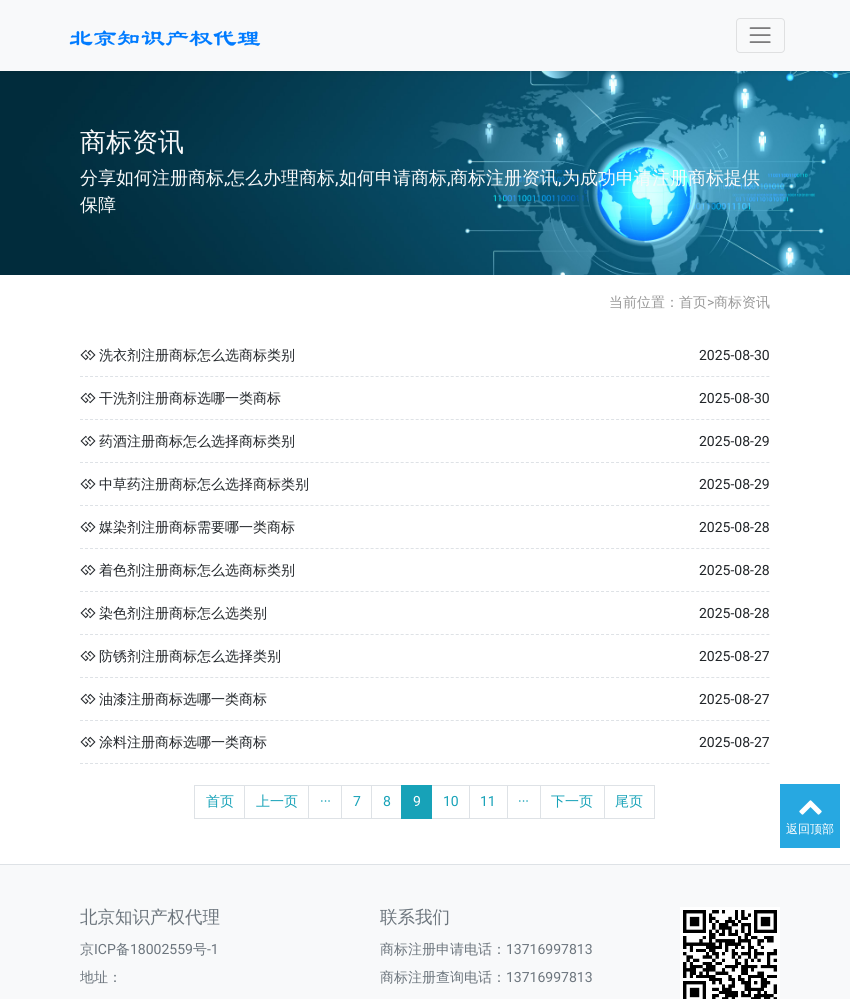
#include <cairo.h>
#include <math.h>
#include <stddef.h>


static void ink(cairo_t *ctx, unsigned color) {
    cairo_set_source_rgb(ctx, (color >> 16) / 255.0, (color >> 8 & 255) / 255.0, (color & 255) / 255.0);
}

static void round_path(cairo_t *ctx, double x, double y, double w, double h, double r) {
    cairo_new_sub_path(ctx);
    cairo_arc(ctx, x + w - r, y + h - r, r, 0, M_PI / 2);
    cairo_arc(ctx, x + r, y + h - r, r, M_PI / 2, M_PI);
    cairo_arc(ctx, x + r, y + r, r, M_PI, 1.5 * M_PI);
    cairo_arc(ctx, x + w - r, y + r, r, 1.5 * M_PI, 2 * M_PI);
    cairo_close_path(ctx);
}

static void blur_box(cairo_t *ctx, double x, double y, double w, double h, double r, double blur, double alpha) {
    cairo_push_group_with_content(ctx, CAIRO_CONTENT_ALPHA);
    cairo_set_operator(ctx, CAIRO_OPERATOR_SOURCE);
    for (int i = 15; i >= -15 && fmin(w, h) + blur * i / 3 > 0; i -= 2) {
        double e = blur * i / 6;
        cairo_set_source_rgba(ctx, 0, 0, 0, alpha * erfc((i - 1) / 8.5) / 2);
        round_path(ctx, x - e, y - e, w + 2 * e, h + 2 * e, fmax(0, fmin(r + e + blur * .6, fmin(w, h) / 2 + e)));
        cairo_fill(ctx);
    }
    cairo_pattern_t *soft = cairo_pop_group(ctx);
    cairo_mask(ctx, soft);
    cairo_pattern_destroy(soft);
}

static void paste(cairo_t *ctx, const char *path, double x, double y, double w, double h) {
    cairo_surface_t *image = cairo_image_surface_create_from_png(path);
    cairo_save(ctx);
    cairo_set_source_surface(ctx, image, x, y);
    cairo_rectangle(ctx, x, y, w, h);
    cairo_fill(ctx);
    cairo_restore(ctx);
    cairo_surface_destroy(image);
}

int main(void) {
    cairo_surface_t *surface = cairo_image_surface_create(CAIRO_FORMAT_RGB24, 850, 999);
    cairo_t *ctx = cairo_create(surface);
    cairo_font_options_t *options = cairo_font_options_create();
    cairo_font_options_set_hint_metrics(options, CAIRO_HINT_METRICS_OFF);
    cairo_font_options_set_hint_style(options, CAIRO_HINT_STYLE_NONE);
    cairo_set_font_options(ctx, options);
    cairo_set_miter_limit(ctx, 4);
    ink(ctx, 0xFFFFFF);
    cairo_paint(ctx);
    paste(ctx, "media/3.png", 0, 71, 850, 204);
    ink(ctx, 0x000000);
    blur_box(ctx, 0, 2, 850, 71, 0, 2, 0.07);
    ink(ctx, 0xF8F9FA);
    cairo_rectangle(ctx, 0, 0, 850, 71);
    cairo_fill(ctx);
    paste(ctx, "media/1.png", 69, 30, 192, 17);
    round_path(ctx, 736.5, 18.5, 48, 34, 3.5);
    ink(ctx, 0xDFE0E1);
    cairo_set_line_width(ctx, 1);
    cairo_stroke(ctx);
    paste(ctx, "media/2.png", 749, 27, 22, 16);
    cairo_select_font_face(ctx, "WenQuanYi Zen Hei Medium", CAIRO_FONT_SLANT_NORMAL, CAIRO_FONT_WEIGHT_NORMAL);
    cairo_set_font_size(ctx, 26);
    ink(ctx, 0xF8F9FA);
    cairo_move_to(ctx, 80, 151);
    cairo_show_text(ctx, "商标资讯");
    cairo_set_font_size(ctx, 18);
    cairo_move_to(ctx, 80, 184);
    cairo_show_text(ctx, "分享如何注册商标");
    cairo_select_font_face(ctx, "Roboto", CAIRO_FONT_SLANT_NORMAL, CAIRO_FONT_WEIGHT_NORMAL);
    cairo_move_to(ctx, 224, 184);
    cairo_show_text(ctx, ",");
    cairo_select_font_face(ctx, "WenQuanYi Zen Hei Medium", CAIRO_FONT_SLANT_NORMAL, CAIRO_FONT_WEIGHT_NORMAL);
    cairo_move_to(ctx, 227, 184);
    cairo_show_text(ctx, "怎么办理商标");
    cairo_select_font_face(ctx, "Roboto", CAIRO_FONT_SLANT_NORMAL, CAIRO_FONT_WEIGHT_NORMAL);
    cairo_move_to(ctx, 335, 184);
    cairo_show_text(ctx, ",");
    cairo_select_font_face(ctx, "WenQuanYi Zen Hei Medium", CAIRO_FONT_SLANT_NORMAL, CAIRO_FONT_WEIGHT_NORMAL);
    cairo_move_to(ctx, 339, 184);
    cairo_show_text(ctx, "如何申请商标");
    cairo_select_font_face(ctx, "Roboto", CAIRO_FONT_SLANT_NORMAL, CAIRO_FONT_WEIGHT_NORMAL);
    cairo_move_to(ctx, 447, 184);
    cairo_show_text(ctx, ",");
    cairo_select_font_face(ctx, "WenQuanYi Zen Hei Medium", CAIRO_FONT_SLANT_NORMAL, CAIRO_FONT_WEIGHT_NORMAL);
    cairo_move_to(ctx, 450, 184);
    cairo_show_text(ctx, "商标注册资讯");
    cairo_select_font_face(ctx, "Roboto", CAIRO_FONT_SLANT_NORMAL, CAIRO_FONT_WEIGHT_NORMAL);
    cairo_move_to(ctx, 558, 184);
    cairo_show_text(ctx, ",");
    cairo_select_font_face(ctx, "WenQuanYi Zen Hei Medium", CAIRO_FONT_SLANT_NORMAL, CAIRO_FONT_WEIGHT_NORMAL);
    cairo_move_to(ctx, 562, 184);
    cairo_show_text(ctx, "为成功申请注册商标提供");
    cairo_move_to(ctx, 80, 211);
    cairo_show_text(ctx, "保障");
    cairo_set_font_size(ctx, 14);
    ink(ctx, 0x999999);
    cairo_move_to(ctx, 609, 307);
    cairo_show_text(ctx, "当前位置：首页");
    cairo_select_font_face(ctx, "Roboto", CAIRO_FONT_SLANT_NORMAL, CAIRO_FONT_WEIGHT_NORMAL);
    cairo_move_to(ctx, 707, 307);
    cairo_show_text(ctx, ">");
    cairo_select_font_face(ctx, "WenQuanYi Zen Hei Medium", CAIRO_FONT_SLANT_NORMAL, CAIRO_FONT_WEIGHT_NORMAL);
    cairo_move_to(ctx, 714, 307);
    cairo_show_text(ctx, "商标资讯");
    cairo_new_path(ctx);
    cairo_move_to(ctx, 80, 376.5);
    cairo_line_to(ctx, 770, 376.5);
    ink(ctx, 0xDEE2E6);
    cairo_set_dash(ctx, (double[]){3, 2.01}, 2, 0);
    cairo_stroke(ctx);
    paste(ctx, "media/4.png", 80, 349, 16, 12);
    ink(ctx, 0x212529);
    cairo_move_to(ctx, 99, 360);
    cairo_show_text(ctx, "洗衣剂注册商标怎么选商标类别");
    cairo_select_font_face(ctx, "Roboto", CAIRO_FONT_SLANT_NORMAL, CAIRO_FONT_WEIGHT_NORMAL);
    cairo_move_to(ctx, 699, 360);
    cairo_show_text(ctx, "2025-08-30");
    cairo_new_path(ctx);
    cairo_move_to(ctx, 80, 419.5);
    cairo_line_to(ctx, 770, 419.5);
    ink(ctx, 0xDEE2E6);
    cairo_stroke(ctx);
    paste(ctx, "media/4.png", 80, 392, 16, 12);
    cairo_select_font_face(ctx, "WenQuanYi Zen Hei Medium", CAIRO_FONT_SLANT_NORMAL, CAIRO_FONT_WEIGHT_NORMAL);
    ink(ctx, 0x212529);
    cairo_move_to(ctx, 99, 403);
    cairo_show_text(ctx, "干洗剂注册商标选哪一类商标");
    cairo_select_font_face(ctx, "Roboto", CAIRO_FONT_SLANT_NORMAL, CAIRO_FONT_WEIGHT_NORMAL);
    cairo_move_to(ctx, 699, 403);
    cairo_show_text(ctx, "2025-08-30");
    cairo_new_path(ctx);
    cairo_move_to(ctx, 80, 462.5);
    cairo_line_to(ctx, 770, 462.5);
    ink(ctx, 0xDEE2E6);
    cairo_stroke(ctx);
    paste(ctx, "media/4.png", 80, 435, 16, 12);
    cairo_select_font_face(ctx, "WenQuanYi Zen Hei Medium", CAIRO_FONT_SLANT_NORMAL, CAIRO_FONT_WEIGHT_NORMAL);
    ink(ctx, 0x212529);
    cairo_move_to(ctx, 99, 446);
    cairo_show_text(ctx, "药酒注册商标怎么选择商标类别");
    cairo_select_font_face(ctx, "Roboto", CAIRO_FONT_SLANT_NORMAL, CAIRO_FONT_WEIGHT_NORMAL);
    cairo_move_to(ctx, 699, 446);
    cairo_show_text(ctx, "2025-08-29");
    cairo_new_path(ctx);
    cairo_move_to(ctx, 80, 505.5);
    cairo_line_to(ctx, 770, 505.5);
    ink(ctx, 0xDEE2E6);
    cairo_stroke(ctx);
    paste(ctx, "media/4.png", 80, 478, 16, 12);
    cairo_select_font_face(ctx, "WenQuanYi Zen Hei Medium", CAIRO_FONT_SLANT_NORMAL, CAIRO_FONT_WEIGHT_NORMAL);
    ink(ctx, 0x212529);
    cairo_move_to(ctx, 99, 489);
    cairo_show_text(ctx, "中草药注册商标怎么选择商标类别");
    cairo_select_font_face(ctx, "Roboto", CAIRO_FONT_SLANT_NORMAL, CAIRO_FONT_WEIGHT_NORMAL);
    cairo_move_to(ctx, 699, 489);
    cairo_show_text(ctx, "2025-08-29");
    cairo_new_path(ctx);
    cairo_move_to(ctx, 80, 548.5);
    cairo_line_to(ctx, 770, 548.5);
    ink(ctx, 0xDEE2E6);
    cairo_stroke(ctx);
    paste(ctx, "media/4.png", 80, 521, 16, 12);
    cairo_select_font_face(ctx, "WenQuanYi Zen Hei Medium", CAIRO_FONT_SLANT_NORMAL, CAIRO_FONT_WEIGHT_NORMAL);
    ink(ctx, 0x212529);
    cairo_move_to(ctx, 99, 532);
    cairo_show_text(ctx, "媒染剂注册商标需要哪一类商标");
    cairo_select_font_face(ctx, "Roboto", CAIRO_FONT_SLANT_NORMAL, CAIRO_FONT_WEIGHT_NORMAL);
    cairo_move_to(ctx, 699, 532);
    cairo_show_text(ctx, "2025-08-28");
    cairo_new_path(ctx);
    cairo_move_to(ctx, 80, 591.5);
    cairo_line_to(ctx, 770, 591.5);
    ink(ctx, 0xDEE2E6);
    cairo_stroke(ctx);
    paste(ctx, "media/4.png", 80, 564, 16, 12);
    cairo_select_font_face(ctx, "WenQuanYi Zen Hei Medium", CAIRO_FONT_SLANT_NORMAL, CAIRO_FONT_WEIGHT_NORMAL);
    ink(ctx, 0x212529);
    cairo_move_to(ctx, 99, 575);
    cairo_show_text(ctx, "着色剂注册商标怎么选商标类别");
    cairo_select_font_face(ctx, "Roboto", CAIRO_FONT_SLANT_NORMAL, CAIRO_FONT_WEIGHT_NORMAL);
    cairo_move_to(ctx, 699, 575);
    cairo_show_text(ctx, "2025-08-28");
    cairo_new_path(ctx);
    cairo_move_to(ctx, 80, 634.5);
    cairo_line_to(ctx, 770, 634.5);
    ink(ctx, 0xDEE2E6);
    cairo_stroke(ctx);
    paste(ctx, "media/4.png", 80, 607, 16, 12);
    cairo_select_font_face(ctx, "WenQuanYi Zen Hei Medium", CAIRO_FONT_SLANT_NORMAL, CAIRO_FONT_WEIGHT_NORMAL);
    ink(ctx, 0x212529);
    cairo_move_to(ctx, 99, 618);
    cairo_show_text(ctx, "染色剂注册商标怎么选类别");
    cairo_select_font_face(ctx, "Roboto", CAIRO_FONT_SLANT_NORMAL, CAIRO_FONT_WEIGHT_NORMAL);
    cairo_move_to(ctx, 699, 618);
    cairo_show_text(ctx, "2025-08-28");
    cairo_new_path(ctx);
    cairo_move_to(ctx, 80, 677.5);
    cairo_line_to(ctx, 770, 677.5);
    ink(ctx, 0xDEE2E6);
    cairo_stroke(ctx);
    paste(ctx, "media/4.png", 80, 650, 16, 12);
    cairo_select_font_face(ctx, "WenQuanYi Zen Hei Medium", CAIRO_FONT_SLANT_NORMAL, CAIRO_FONT_WEIGHT_NORMAL);
    ink(ctx, 0x212529);
    cairo_move_to(ctx, 99, 661);
    cairo_show_text(ctx, "防锈剂注册商标怎么选择类别");
    cairo_select_font_face(ctx, "Roboto", CAIRO_FONT_SLANT_NORMAL, CAIRO_FONT_WEIGHT_NORMAL);
    cairo_move_to(ctx, 699, 661);
    cairo_show_text(ctx, "2025-08-27");
    cairo_new_path(ctx);
    cairo_move_to(ctx, 80, 720.5);
    cairo_line_to(ctx, 770, 720.5);
    ink(ctx, 0xDEE2E6);
    cairo_stroke(ctx);
    paste(ctx, "media/4.png", 80, 693, 16, 12);
    cairo_select_font_face(ctx, "WenQuanYi Zen Hei Medium", CAIRO_FONT_SLANT_NORMAL, CAIRO_FONT_WEIGHT_NORMAL);
    ink(ctx, 0x212529);
    cairo_move_to(ctx, 99, 704);
    cairo_show_text(ctx, "油漆注册商标选哪一类商标");
    cairo_select_font_face(ctx, "Roboto", CAIRO_FONT_SLANT_NORMAL, CAIRO_FONT_WEIGHT_NORMAL);
    cairo_move_to(ctx, 699, 704);
    cairo_show_text(ctx, "2025-08-27");
    cairo_new_path(ctx);
    cairo_move_to(ctx, 80, 763.5);
    cairo_line_to(ctx, 770, 763.5);
    ink(ctx, 0xDEE2E6);
    cairo_stroke(ctx);
    paste(ctx, "media/4.png", 80, 736, 16, 12);
    cairo_select_font_face(ctx, "WenQuanYi Zen Hei Medium", CAIRO_FONT_SLANT_NORMAL, CAIRO_FONT_WEIGHT_NORMAL);
    ink(ctx, 0x212529);
    cairo_move_to(ctx, 99, 747);
    cairo_show_text(ctx, "涂料注册商标选哪一类商标");
    cairo_select_font_face(ctx, "Roboto", CAIRO_FONT_SLANT_NORMAL, CAIRO_FONT_WEIGHT_NORMAL);
    cairo_move_to(ctx, 699, 747);
    cairo_show_text(ctx, "2025-08-27");
    cairo_rectangle(ctx, 194.5, 785.5, 50, 33);
    ink(ctx, 0xDEE2E6);
    cairo_set_dash(ctx, NULL, 0, 0);
    cairo_stroke(ctx);
    cairo_select_font_face(ctx, "WenQuanYi Zen Hei Medium", CAIRO_FONT_SLANT_NORMAL, CAIRO_FONT_WEIGHT_NORMAL);
    ink(ctx, 0x17A2B8);
    cairo_move_to(ctx, 206, 806);
    cairo_show_text(ctx, "首页");
    cairo_rectangle(ctx, 244.5, 785.5, 64, 33);
    ink(ctx, 0xDEE2E6);
    cairo_stroke(ctx);
    ink(ctx, 0x17A2B8);
    cairo_move_to(ctx, 256, 806);
    cairo_show_text(ctx, "上一页");
    cairo_rectangle(ctx, 308.5, 785.5, 33, 33);
    ink(ctx, 0xDEE2E6);
    cairo_stroke(ctx);
    cairo_select_font_face(ctx, "Roboto", CAIRO_FONT_SLANT_NORMAL, CAIRO_FONT_WEIGHT_NORMAL);
    ink(ctx, 0x17A2B8);
    cairo_move_to(ctx, 320, 806);
    cairo_show_text(ctx, "···");
    cairo_rectangle(ctx, 341.5, 785.5, 30, 33);
    ink(ctx, 0xDEE2E6);
    cairo_stroke(ctx);
    ink(ctx, 0x17A2B8);
    cairo_move_to(ctx, 353, 806);
    cairo_show_text(ctx, "7");
    cairo_rectangle(ctx, 371.5, 785.5, 30, 33);
    ink(ctx, 0xDEE2E6);
    cairo_stroke(ctx);
    ink(ctx, 0x17A2B8);
    cairo_move_to(ctx, 383, 806);
    cairo_show_text(ctx, "8");
    cairo_rectangle(ctx, 431.5, 785.5, 38, 33);
    ink(ctx, 0xDEE2E6);
    cairo_stroke(ctx);
    ink(ctx, 0x17A2B8);
    cairo_rectangle(ctx, 401, 785, 31, 34);
    cairo_fill(ctx);
    ink(ctx, 0xFFFFFF);
    cairo_move_to(ctx, 413, 806);
    cairo_show_text(ctx, "9");
    ink(ctx, 0x17A2B8);
    cairo_move_to(ctx, 443, 806);
    cairo_show_text(ctx, "10");
    cairo_rectangle(ctx, 469.5, 785.5, 38, 33);
    ink(ctx, 0xDEE2E6);
    cairo_stroke(ctx);
    ink(ctx, 0x17A2B8);
    cairo_move_to(ctx, 480, 806);
    cairo_show_text(ctx, "11");
    cairo_rectangle(ctx, 507.5, 785.5, 33, 33);
    ink(ctx, 0xDEE2E6);
    cairo_stroke(ctx);
    ink(ctx, 0x17A2B8);
    cairo_move_to(ctx, 518, 806);
    cairo_show_text(ctx, "···");
    cairo_rectangle(ctx, 540.5, 785.5, 64, 33);
    ink(ctx, 0xDEE2E6);
    cairo_stroke(ctx);
    cairo_select_font_face(ctx, "WenQuanYi Zen Hei Medium", CAIRO_FONT_SLANT_NORMAL, CAIRO_FONT_WEIGHT_NORMAL);
    ink(ctx, 0x17A2B8);
    cairo_move_to(ctx, 551, 806);
    cairo_show_text(ctx, "下一页");
    cairo_rectangle(ctx, 604.5, 785.5, 50, 33);
    ink(ctx, 0xDEE2E6);
    cairo_stroke(ctx);
    ink(ctx, 0x17A2B8);
    cairo_move_to(ctx, 615, 806);
    cairo_show_text(ctx, "尾页");
    ink(ctx, 0x27A8E1);
    cairo_rectangle(ctx, 780, 784, 60, 64);
    cairo_fill(ctx);
    paste(ctx, "media/5.png", 799, 800, 23, 15);
    cairo_set_font_size(ctx, 12);
    ink(ctx, 0xFFFFFF);
    cairo_move_to(ctx, 786, 833);
    cairo_show_text(ctx, "返回顶部");
    ink(ctx, 0xF8F9FA);
    cairo_rectangle(ctx, 0, 865, 850, 134);
    cairo_fill(ctx);
    ink(ctx, 0xDEE2E6);
    cairo_rectangle(ctx, 0, 864, 850, 1);
    cairo_fill(ctx);
    cairo_set_font_size(ctx, 17.5);
    ink(ctx, 0x6C757D);
    cairo_move_to(ctx, 80, 923);
    cairo_show_text(ctx, "北京知识产权代理");
    cairo_set_font_size(ctx, 14);
    cairo_move_to(ctx, 80, 954);
    cairo_show_text(ctx, "京");
    cairo_select_font_face(ctx, "Roboto", CAIRO_FONT_SLANT_NORMAL, CAIRO_FONT_WEIGHT_NORMAL);
    cairo_move_to(ctx, 94, 954);
    cairo_show_text(ctx, "ICP");
    cairo_select_font_face(ctx, "WenQuanYi Zen Hei Medium", CAIRO_FONT_SLANT_NORMAL, CAIRO_FONT_WEIGHT_NORMAL);
    cairo_move_to(ctx, 116, 954);
    cairo_show_text(ctx, "备");
    cairo_select_font_face(ctx, "Roboto", CAIRO_FONT_SLANT_NORMAL, CAIRO_FONT_WEIGHT_NORMAL);
    cairo_move_to(ctx, 130, 954);
    cairo_show_text(ctx, "18002559");
    cairo_select_font_face(ctx, "WenQuanYi Zen Hei Medium", CAIRO_FONT_SLANT_NORMAL, CAIRO_FONT_WEIGHT_NORMAL);
    cairo_move_to(ctx, 193, 954);
    cairo_show_text(ctx, "号");
    cairo_select_font_face(ctx, "Roboto", CAIRO_FONT_SLANT_NORMAL, CAIRO_FONT_WEIGHT_NORMAL);
    cairo_move_to(ctx, 207, 954);
    cairo_show_text(ctx, "-1");
    cairo_select_font_face(ctx, "WenQuanYi Zen Hei Medium", CAIRO_FONT_SLANT_NORMAL, CAIRO_FONT_WEIGHT_NORMAL);
    cairo_move_to(ctx, 80, 982);
    cairo_show_text(ctx, "地址：");
    cairo_set_font_size(ctx, 17.5);
    cairo_move_to(ctx, 380, 923);
    cairo_show_text(ctx, "联系我们");
    cairo_set_font_size(ctx, 14);
    cairo_move_to(ctx, 380, 954);
    cairo_show_text(ctx, "商标注册申请电话：");
    cairo_select_font_face(ctx, "Roboto", CAIRO_FONT_SLANT_NORMAL, CAIRO_FONT_WEIGHT_NORMAL);
    cairo_move_to(ctx, 506, 954);
    cairo_show_text(ctx, "13716997813");
    cairo_select_font_face(ctx, "WenQuanYi Zen Hei Medium", CAIRO_FONT_SLANT_NORMAL, CAIRO_FONT_WEIGHT_NORMAL);
    cairo_move_to(ctx, 380, 982);
    cairo_show_text(ctx, "商标注册查询电话：");
    cairo_select_font_face(ctx, "Roboto", CAIRO_FONT_SLANT_NORMAL, CAIRO_FONT_WEIGHT_NORMAL);
    cairo_move_to(ctx, 506, 982);
    cairo_show_text(ctx, "13716997813");
    paste(ctx, "media/6.png", 680, 907, 100, 92);
    cairo_surface_write_to_png(surface, "image.png");
    cairo_font_options_destroy(options);
    cairo_destroy(ctx);
    cairo_surface_destroy(surface);
    return 0;
}
